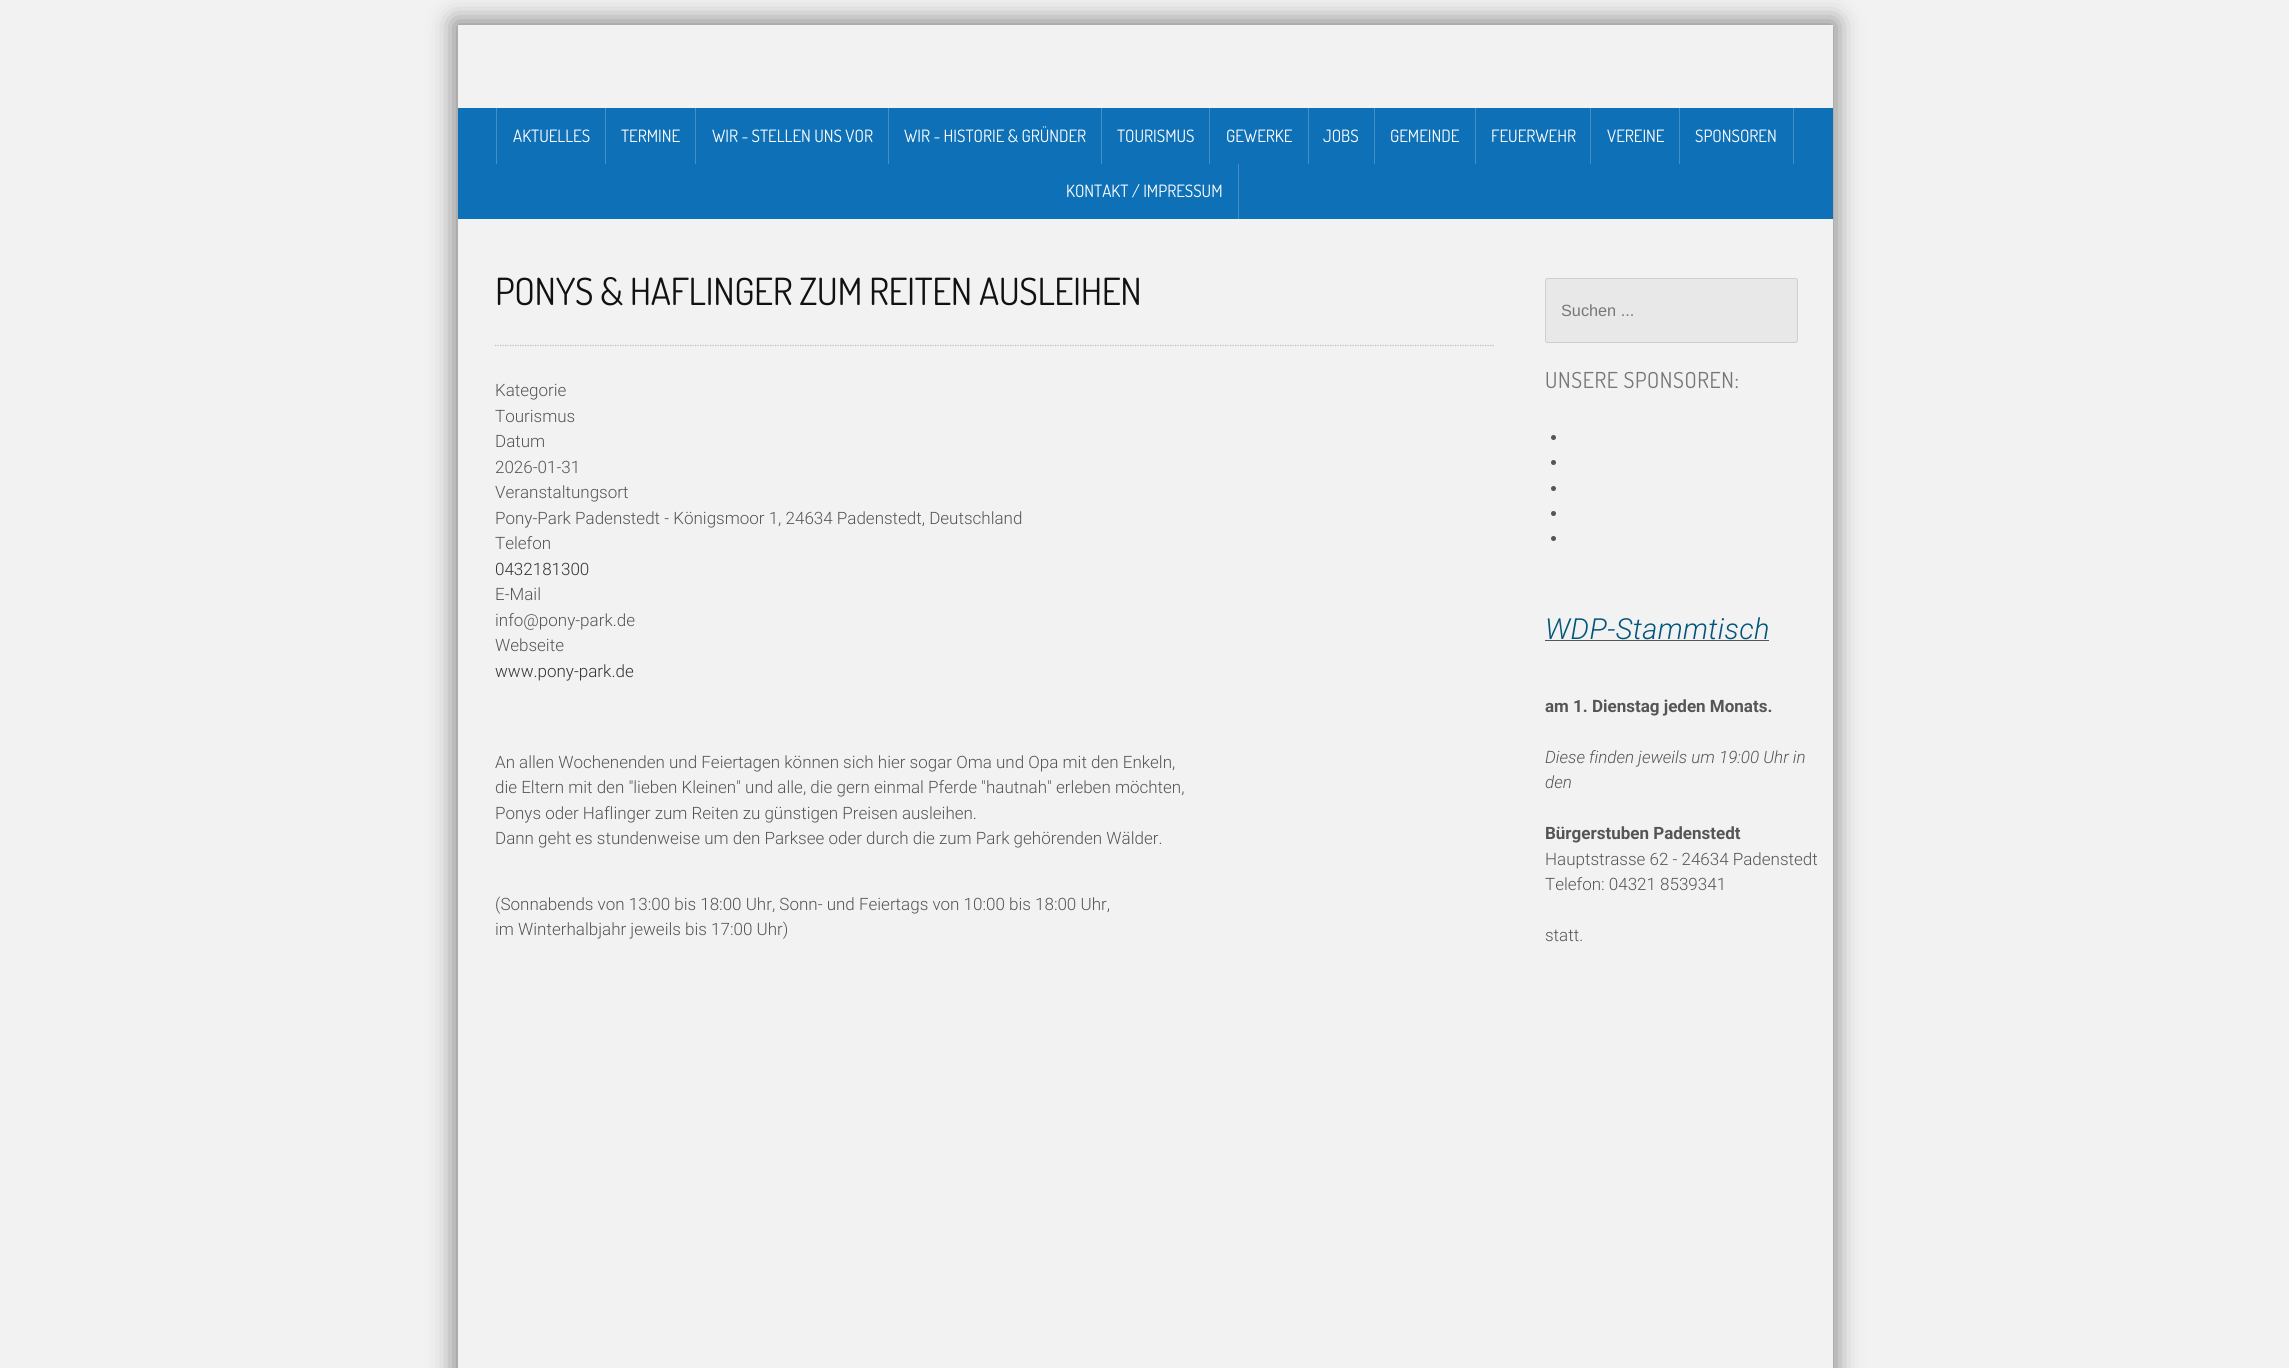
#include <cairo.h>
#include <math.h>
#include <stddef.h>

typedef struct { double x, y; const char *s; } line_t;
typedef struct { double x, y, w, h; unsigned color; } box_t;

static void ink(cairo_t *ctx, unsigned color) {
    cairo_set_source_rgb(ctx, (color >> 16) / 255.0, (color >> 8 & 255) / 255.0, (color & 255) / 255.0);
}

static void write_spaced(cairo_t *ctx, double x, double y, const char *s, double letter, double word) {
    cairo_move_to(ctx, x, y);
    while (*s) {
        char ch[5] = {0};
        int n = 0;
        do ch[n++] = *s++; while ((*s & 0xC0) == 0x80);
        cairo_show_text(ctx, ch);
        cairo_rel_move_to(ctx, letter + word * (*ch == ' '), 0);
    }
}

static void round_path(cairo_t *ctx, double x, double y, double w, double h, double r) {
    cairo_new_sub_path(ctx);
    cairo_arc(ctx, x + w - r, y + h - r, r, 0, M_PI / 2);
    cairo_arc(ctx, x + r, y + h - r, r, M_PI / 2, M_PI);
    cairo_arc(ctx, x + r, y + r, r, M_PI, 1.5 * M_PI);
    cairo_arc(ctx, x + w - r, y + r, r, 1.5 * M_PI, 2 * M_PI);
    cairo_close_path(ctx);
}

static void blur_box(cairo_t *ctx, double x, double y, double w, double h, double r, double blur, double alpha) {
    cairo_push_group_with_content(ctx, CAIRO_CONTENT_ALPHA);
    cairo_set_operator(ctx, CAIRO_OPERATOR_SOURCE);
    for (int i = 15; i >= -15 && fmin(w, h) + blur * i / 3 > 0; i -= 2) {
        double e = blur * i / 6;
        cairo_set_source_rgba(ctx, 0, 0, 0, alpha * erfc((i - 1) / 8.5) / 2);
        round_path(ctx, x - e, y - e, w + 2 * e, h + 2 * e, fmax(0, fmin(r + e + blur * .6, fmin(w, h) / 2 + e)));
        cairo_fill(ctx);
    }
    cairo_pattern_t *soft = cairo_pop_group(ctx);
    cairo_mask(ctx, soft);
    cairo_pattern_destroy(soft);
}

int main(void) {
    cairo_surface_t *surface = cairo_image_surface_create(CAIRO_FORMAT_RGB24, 2289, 1368);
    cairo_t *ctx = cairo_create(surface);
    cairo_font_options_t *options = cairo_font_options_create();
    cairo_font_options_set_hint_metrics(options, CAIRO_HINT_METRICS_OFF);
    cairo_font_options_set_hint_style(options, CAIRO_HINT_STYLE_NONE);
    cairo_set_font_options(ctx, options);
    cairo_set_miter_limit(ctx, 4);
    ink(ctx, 0xF2F2F2);
    cairo_paint(ctx);
    ink(ctx, 0x000000);
    blur_box(ctx, 454, 21, 1382, 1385, 0, 12.5, 0.46);
    {
        static const box_t items[] = {
            {458, 25, 1375, 1343, 0xF2F2F2},
            {458, 108, 1375, 111, 0x0E71B8},
            {605, 108, 1, 56, 0x4390C8},
            {496, 108, 1, 56, 0x4390C8},
        };
        for (size_t i = 0; i < sizeof items / sizeof *items; i++) {
            ink(ctx, items[i].color);
            cairo_rectangle(ctx, items[i].x, items[i].y, items[i].w, items[i].h);
            cairo_fill(ctx);
        }
    }
    cairo_select_font_face(ctx, "Dosis", CAIRO_FONT_SLANT_NORMAL, CAIRO_FONT_WEIGHT_NORMAL);
    cairo_set_font_size(ctx, 17);
    ink(ctx, 0xFFFFFF);
    cairo_move_to(ctx, 513, 142);
    cairo_show_text(ctx, "AKTUELLES");
    ink(ctx, 0x4390C8);
    cairo_rectangle(ctx, 695, 108, 1, 56);
    cairo_fill(ctx);
    ink(ctx, 0xFFFFFF);
    cairo_move_to(ctx, 621, 142);
    cairo_show_text(ctx, "TERMINE");
    ink(ctx, 0x4390C8);
    cairo_rectangle(ctx, 888, 108, 1, 56);
    cairo_fill(ctx);
    ink(ctx, 0xFFFFFF);
    cairo_move_to(ctx, 712, 142);
    cairo_show_text(ctx, "WIR - STELLEN UNS VOR");
    ink(ctx, 0x4390C8);
    cairo_rectangle(ctx, 1101, 108, 1, 56);
    cairo_fill(ctx);
    ink(ctx, 0xFFFFFF);
    cairo_move_to(ctx, 904, 142);
    cairo_show_text(ctx, "WIR - HISTORIE & GRÜNDER");
    ink(ctx, 0x4390C8);
    cairo_rectangle(ctx, 1209, 108, 1, 56);
    cairo_fill(ctx);
    ink(ctx, 0xFFFFFF);
    cairo_move_to(ctx, 1117, 142);
    cairo_show_text(ctx, "TOURISMUS");
    ink(ctx, 0x4390C8);
    cairo_rectangle(ctx, 1308, 108, 1, 56);
    cairo_fill(ctx);
    ink(ctx, 0xFFFFFF);
    cairo_move_to(ctx, 1226, 142);
    cairo_show_text(ctx, "GEWERKE");
    ink(ctx, 0x4390C8);
    cairo_rectangle(ctx, 1374, 108, 1, 56);
    cairo_fill(ctx);
    ink(ctx, 0xFFFFFF);
    cairo_move_to(ctx, 1323, 142);
    cairo_show_text(ctx, "JOBS");
    ink(ctx, 0x4390C8);
    cairo_rectangle(ctx, 1475, 108, 1, 56);
    cairo_fill(ctx);
    ink(ctx, 0xFFFFFF);
    cairo_move_to(ctx, 1390, 142);
    cairo_show_text(ctx, "GEMEINDE");
    ink(ctx, 0x4390C8);
    cairo_rectangle(ctx, 1590, 108, 1, 56);
    cairo_fill(ctx);
    ink(ctx, 0xFFFFFF);
    cairo_move_to(ctx, 1491, 142);
    cairo_show_text(ctx, "FEUERWEHR");
    ink(ctx, 0x4390C8);
    cairo_rectangle(ctx, 1679, 108, 1, 56);
    cairo_fill(ctx);
    ink(ctx, 0xFFFFFF);
    cairo_move_to(ctx, 1607, 142);
    cairo_show_text(ctx, "VEREINE");
    ink(ctx, 0x4390C8);
    cairo_rectangle(ctx, 1793, 108, 1, 56);
    cairo_fill(ctx);
    ink(ctx, 0xFFFFFF);
    cairo_move_to(ctx, 1695, 142);
    cairo_show_text(ctx, "SPONSOREN");
    ink(ctx, 0x4390C8);
    cairo_rectangle(ctx, 1238, 164, 1, 55);
    cairo_fill(ctx);
    ink(ctx, 0xFFFFFF);
    cairo_move_to(ctx, 1066, 197);
    cairo_show_text(ctx, "KONTAKT / IMPRESSUM");
    cairo_new_path(ctx);
    cairo_move_to(ctx, 495, 345.5);
    cairo_line_to(ctx, 1495, 345.5);
    ink(ctx, 0xBBBBBB);
    cairo_set_line_width(ctx, 1.2);
    cairo_set_dash(ctx, (double[]){1.25, 1.25}, 2, 0);
    cairo_stroke(ctx);
    cairo_set_font_size(ctx, 37.4);
    ink(ctx, 0x111111);
    write_spaced(ctx, 495, 305, "PONYS & HAFLINGER ZUM REITEN AUSLEIHEN", -0.4, 0);
    cairo_select_font_face(ctx, "Roboto Light", CAIRO_FONT_SLANT_NORMAL, CAIRO_FONT_WEIGHT_NORMAL);
    cairo_set_font_size(ctx, 17);
    ink(ctx, 0x555555);
    {
        static const line_t items[] = {
            {495, 396, "Kategorie"},
            {495, 422, "Tourismus"},
            {495, 447, "Datum"},
            {495, 473, "2026-01-31"},
            {495, 498, "Veranstaltungsort"},
            {495, 524, "Pony-Park Padenstedt - Königsmoor 1, 24634 Padenstedt, Deutschland"},
            {495, 549, "Telefon"},
        };
        for (size_t i = 0; i < sizeof items / sizeof *items; i++) {
            cairo_move_to(ctx, items[i].x, items[i].y);
            cairo_show_text(ctx, items[i].s);
        }
    }
    ink(ctx, 0x333333);
    cairo_move_to(ctx, 495, 575);
    cairo_show_text(ctx, "0432181300");
    ink(ctx, 0x555555);
    {
        static const line_t items[] = {
            {495, 600, "E-Mail"},
            {495, 626, "info@pony-park.de"},
            {495, 651, "Webseite"},
        };
        for (size_t i = 0; i < sizeof items / sizeof *items; i++) {
            cairo_move_to(ctx, items[i].x, items[i].y);
            cairo_show_text(ctx, items[i].s);
        }
    }
    ink(ctx, 0x333333);
    cairo_move_to(ctx, 495, 677);
    cairo_show_text(ctx, "www.pony-park.de");
    ink(ctx, 0x555555);
    {
        static const line_t items[] = {
            {495, 768, "An allen Wochenenden und Feiertagen können sich hier sogar Oma und Opa mit den Enkeln,"},
            {495, 793, "die Eltern mit den \"lieben Kleinen\" und alle, die gern einmal Pferde \"hautnah\" erleben möchten,"},
            {495, 819, "Ponys oder Haflinger zum Reiten zu günstigen Preisen ausleihen."},
            {495, 844, "Dann geht es stundenweise um den Parksee oder durch die zum Park gehörenden Wälder."},
            {495, 910, "(Sonnabends von 13:00 bis 18:00 Uhr, Sonn- und Feiertags von 10:00 bis 18:00 Uhr,"},
            {495, 935, "im Winterhalbjahr jeweils bis 17:00 Uhr)"},
        };
        for (size_t i = 0; i < sizeof items / sizeof *items; i++) {
            cairo_move_to(ctx, items[i].x, items[i].y);
            cairo_show_text(ctx, items[i].s);
        }
    }
    ink(ctx, 0xE8E8E8);
    round_path(ctx, 1545, 278, 253, 65, 2.5);
    cairo_fill(ctx);
    round_path(ctx, 1545.5, 278.5, 252, 64, 2);
    cairo_set_source_rgba(ctx, 0.392, 0.392, 0.392, 0.2);
    cairo_set_line_width(ctx, 1);
    cairo_set_dash(ctx, NULL, 0, 0);
    cairo_stroke(ctx);
    cairo_select_font_face(ctx, "Liberation Sans", CAIRO_FONT_SLANT_NORMAL, CAIRO_FONT_WEIGHT_NORMAL);
    cairo_set_font_size(ctx, 16.25);
    ink(ctx, 0x777777);
    cairo_move_to(ctx, 1561, 316);
    cairo_show_text(ctx, "Suchen ...");
    cairo_select_font_face(ctx, "Dosis", CAIRO_FONT_SLANT_NORMAL, CAIRO_FONT_WEIGHT_NORMAL);
    cairo_set_font_size(ctx, 22);
    write_spaced(ctx, 1545, 388, "UNSERE SPONSOREN:", 0.6, 0);
    ink(ctx, 0x555555);
    cairo_new_path(ctx);
    cairo_arc(ctx, 1553.5, 437.5, 2.5, 0, 2 * M_PI);
    cairo_fill(ctx);
    cairo_arc(ctx, 1553.5, 462.5, 2.5, 0, 2 * M_PI);
    cairo_fill(ctx);
    cairo_arc(ctx, 1553.5, 488.5, 2.5, 0, 2 * M_PI);
    cairo_fill(ctx);
    cairo_arc(ctx, 1553.5, 513.5, 2.5, 0, 2 * M_PI);
    cairo_fill(ctx);
    cairo_arc(ctx, 1553.5, 538.5, 2.5, 0, 2 * M_PI);
    cairo_fill(ctx);
    cairo_select_font_face(ctx, "Roboto Light", CAIRO_FONT_SLANT_ITALIC, CAIRO_FONT_WEIGHT_NORMAL);
    cairo_set_font_size(ctx, 29);
    ink(ctx, 0x00557C);
    write_spaced(ctx, 1545, 639, "WDP-Stammtisch", 0.4, 0);
    ink(ctx, 0x555555);
    cairo_rectangle(ctx, 1545, 640, 224, 1);
    cairo_fill(ctx);
    cairo_select_font_face(ctx, "Roboto", CAIRO_FONT_SLANT_NORMAL, CAIRO_FONT_WEIGHT_BOLD);
    cairo_set_font_size(ctx, 17);
    cairo_move_to(ctx, 1545, 712);
    cairo_show_text(ctx, "am 1. Dienstag jeden Monats.");
    cairo_select_font_face(ctx, "Roboto Light", CAIRO_FONT_SLANT_ITALIC, CAIRO_FONT_WEIGHT_NORMAL);
    cairo_move_to(ctx, 1545, 763);
    cairo_show_text(ctx, "Diese finden jeweils um 19:00 Uhr in");
    cairo_move_to(ctx, 1545, 788);
    cairo_show_text(ctx, "den");
    cairo_select_font_face(ctx, "Roboto", CAIRO_FONT_SLANT_NORMAL, CAIRO_FONT_WEIGHT_BOLD);
    cairo_move_to(ctx, 1545, 839);
    cairo_show_text(ctx, "Bürgerstuben Padenstedt");
    cairo_select_font_face(ctx, "Roboto Light", CAIRO_FONT_SLANT_NORMAL, CAIRO_FONT_WEIGHT_NORMAL);
    {
        static const line_t items[] = {
            {1545, 865, "Hauptstrasse 62 - 24634 Padenstedt"},
            {1545, 890, "Telefon: 04321 8539341"},
            {1545, 941, "statt."},
        };
        for (size_t i = 0; i < sizeof items / sizeof *items; i++) {
            cairo_move_to(ctx, items[i].x, items[i].y);
            cairo_show_text(ctx, items[i].s);
        }
    }
    cairo_surface_write_to_png(surface, "image.png");
    cairo_font_options_destroy(options);
    cairo_destroy(ctx);
    cairo_surface_destroy(surface);
    return 0;
}
